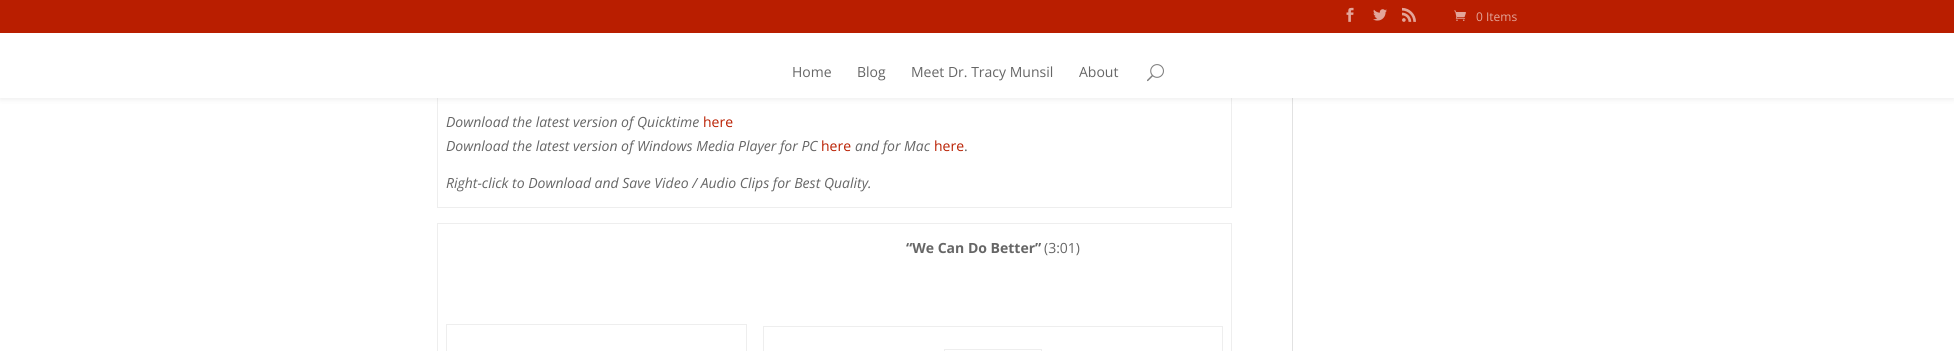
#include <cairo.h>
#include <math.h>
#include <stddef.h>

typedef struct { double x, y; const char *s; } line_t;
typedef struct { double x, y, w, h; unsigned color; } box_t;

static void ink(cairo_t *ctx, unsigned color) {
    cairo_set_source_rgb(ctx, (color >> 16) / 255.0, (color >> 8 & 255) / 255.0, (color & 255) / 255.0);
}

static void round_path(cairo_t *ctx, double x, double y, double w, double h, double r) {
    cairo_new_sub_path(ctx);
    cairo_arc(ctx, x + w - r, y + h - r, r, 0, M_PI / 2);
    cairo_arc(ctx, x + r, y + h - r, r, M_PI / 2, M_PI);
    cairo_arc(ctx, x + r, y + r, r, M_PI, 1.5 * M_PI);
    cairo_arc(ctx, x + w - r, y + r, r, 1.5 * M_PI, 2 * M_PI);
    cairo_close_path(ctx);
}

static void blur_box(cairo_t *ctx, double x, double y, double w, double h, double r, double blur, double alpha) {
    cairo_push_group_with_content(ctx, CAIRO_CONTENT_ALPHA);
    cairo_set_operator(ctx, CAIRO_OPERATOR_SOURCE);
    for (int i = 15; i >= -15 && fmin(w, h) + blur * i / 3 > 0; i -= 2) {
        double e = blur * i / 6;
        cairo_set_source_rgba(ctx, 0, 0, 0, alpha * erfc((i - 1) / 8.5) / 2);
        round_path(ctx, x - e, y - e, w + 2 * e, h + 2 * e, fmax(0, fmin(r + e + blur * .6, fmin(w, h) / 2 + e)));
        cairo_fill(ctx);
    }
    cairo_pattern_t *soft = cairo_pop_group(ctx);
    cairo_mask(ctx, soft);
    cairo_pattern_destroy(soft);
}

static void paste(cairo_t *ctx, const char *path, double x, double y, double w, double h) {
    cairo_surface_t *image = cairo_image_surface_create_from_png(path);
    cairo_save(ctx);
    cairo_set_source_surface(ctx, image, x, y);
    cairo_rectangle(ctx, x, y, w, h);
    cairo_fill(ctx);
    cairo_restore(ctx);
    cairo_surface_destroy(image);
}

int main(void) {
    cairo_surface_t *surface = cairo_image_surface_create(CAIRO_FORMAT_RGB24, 1954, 351);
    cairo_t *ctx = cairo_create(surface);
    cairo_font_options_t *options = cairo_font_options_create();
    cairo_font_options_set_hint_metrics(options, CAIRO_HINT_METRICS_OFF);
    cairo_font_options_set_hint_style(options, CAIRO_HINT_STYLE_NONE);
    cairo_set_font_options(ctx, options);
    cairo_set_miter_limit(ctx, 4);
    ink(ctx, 0xFFFFFF);
    cairo_paint(ctx);
    {
        static const box_t items[] = {
            {1231, 97, 1, 111, 0xEEEEEE},
            {437, 207, 795, 1, 0xEEEEEE},
            {437, 97, 1, 111, 0xEEEEEE},
            {1292, 98, 1, 253, 0xE2E2E2},
        };
        for (size_t i = 0; i < sizeof items / sizeof *items; i++) {
            ink(ctx, items[i].color);
            cairo_rectangle(ctx, items[i].x, items[i].y, items[i].w, items[i].h);
            cairo_fill(ctx);
        }
    }
    ink(ctx, 0x000000);
    blur_box(ctx, 0, 33, 1954, 65, 0, 3.5, 0.1);
    ink(ctx, 0xB91E00);
    cairo_rectangle(ctx, 0, 0, 1954, 33);
    cairo_fill(ctx);
    paste(ctx, "media/1.png", 1346, 7, 8, 15);
    paste(ctx, "media/2.png", 1373, 9, 14, 12);
    paste(ctx, "media/3.png", 1402, 7, 14, 15);
    paste(ctx, "media/4.png", 1454, 10, 12, 11);
    cairo_select_font_face(ctx, "Open Sans", CAIRO_FONT_SLANT_NORMAL, CAIRO_FONT_WEIGHT_NORMAL);
    cairo_set_font_size(ctx, 12);
    ink(ctx, 0xE3A599);
    cairo_move_to(ctx, 1476, 21);
    cairo_show_text(ctx, "0 Items");
    ink(ctx, 0xFFFFFF);
    cairo_rectangle(ctx, 0, 33, 1954, 65);
    cairo_fill(ctx);
    cairo_set_font_size(ctx, 14);
    ink(ctx, 0x666666);
    {
        static const line_t items[] = {
            {792, 77, "Home"},
            {857, 77, "Blog"},
            {911, 77, "Meet Dr. Tracy Munsil"},
            {1079, 77, "About"},
        };
        for (size_t i = 0; i < sizeof items / sizeof *items; i++) {
            cairo_move_to(ctx, items[i].x, items[i].y);
            cairo_show_text(ctx, items[i].s);
        }
    }
    paste(ctx, "media/5.png", 1147, 64, 17, 18);
    cairo_select_font_face(ctx, "Open Sans", CAIRO_FONT_SLANT_ITALIC, CAIRO_FONT_WEIGHT_NORMAL);
    cairo_move_to(ctx, 446, 127);
    cairo_show_text(ctx, "Download the latest version of Quicktime");
    cairo_select_font_face(ctx, "Open Sans", CAIRO_FONT_SLANT_NORMAL, CAIRO_FONT_WEIGHT_NORMAL);
    ink(ctx, 0xB91E00);
    cairo_move_to(ctx, 703, 127);
    cairo_show_text(ctx, "here");
    cairo_select_font_face(ctx, "Open Sans", CAIRO_FONT_SLANT_ITALIC, CAIRO_FONT_WEIGHT_NORMAL);
    ink(ctx, 0x666666);
    cairo_move_to(ctx, 446, 151);
    cairo_show_text(ctx, "Download the latest version of Windows Media Player for PC");
    cairo_select_font_face(ctx, "Open Sans", CAIRO_FONT_SLANT_NORMAL, CAIRO_FONT_WEIGHT_NORMAL);
    ink(ctx, 0xB91E00);
    cairo_move_to(ctx, 821, 151);
    cairo_show_text(ctx, "here");
    cairo_select_font_face(ctx, "Open Sans", CAIRO_FONT_SLANT_ITALIC, CAIRO_FONT_WEIGHT_NORMAL);
    ink(ctx, 0x666666);
    cairo_move_to(ctx, 855, 151);
    cairo_show_text(ctx, "and for Mac");
    cairo_select_font_face(ctx, "Open Sans", CAIRO_FONT_SLANT_NORMAL, CAIRO_FONT_WEIGHT_NORMAL);
    ink(ctx, 0xB91E00);
    cairo_move_to(ctx, 934, 151);
    cairo_show_text(ctx, "here");
    ink(ctx, 0x666666);
    cairo_move_to(ctx, 964, 151);
    cairo_show_text(ctx, ".");
    cairo_select_font_face(ctx, "Open Sans", CAIRO_FONT_SLANT_ITALIC, CAIRO_FONT_WEIGHT_NORMAL);
    cairo_move_to(ctx, 446, 188);
    cairo_show_text(ctx, "Right-click to Download and Save Video / Audio Clips for Best Quality.");
    {
        static const box_t items[] = {
            {437, 223, 795, 1, 0xEEEEEE},
            {1231, 223, 1, 128, 0xEEEEEE},
            {437, 223, 1, 128, 0xEEEEEE},
        };
        for (size_t i = 0; i < sizeof items / sizeof *items; i++) {
            ink(ctx, items[i].color);
            cairo_rectangle(ctx, items[i].x, items[i].y, items[i].w, items[i].h);
            cairo_fill(ctx);
        }
    }
    cairo_select_font_face(ctx, "Open Sans", CAIRO_FONT_SLANT_NORMAL, CAIRO_FONT_WEIGHT_BOLD);
    ink(ctx, 0x666666);
    cairo_move_to(ctx, 906, 253);
    cairo_show_text(ctx, "“We Can Do Better”");
    cairo_select_font_face(ctx, "Open Sans", CAIRO_FONT_SLANT_NORMAL, CAIRO_FONT_WEIGHT_NORMAL);
    cairo_move_to(ctx, 1044, 253);
    cairo_show_text(ctx, "(3:01)");
    {
        static const box_t items[] = {
            {763, 326, 460, 1, 0xEEEEEE},
            {1222, 326, 1, 25, 0xEEEEEE},
            {763, 326, 1, 25, 0xEEEEEE},
            {944, 349, 98, 1, 0xEEEEEE},
            {1041, 349, 1, 2, 0xEEEEEE},
            {944, 349, 1, 2, 0xEEEEEE},
            {446, 324, 301, 1, 0xEEEEEE},
            {746, 324, 1, 27, 0xEEEEEE},
            {446, 324, 1, 27, 0xEEEEEE},
        };
        for (size_t i = 0; i < sizeof items / sizeof *items; i++) {
            ink(ctx, items[i].color);
            cairo_rectangle(ctx, items[i].x, items[i].y, items[i].w, items[i].h);
            cairo_fill(ctx);
        }
    }
    cairo_surface_write_to_png(surface, "image.png");
    cairo_font_options_destroy(options);
    cairo_destroy(ctx);
    cairo_surface_destroy(surface);
    return 0;
}
